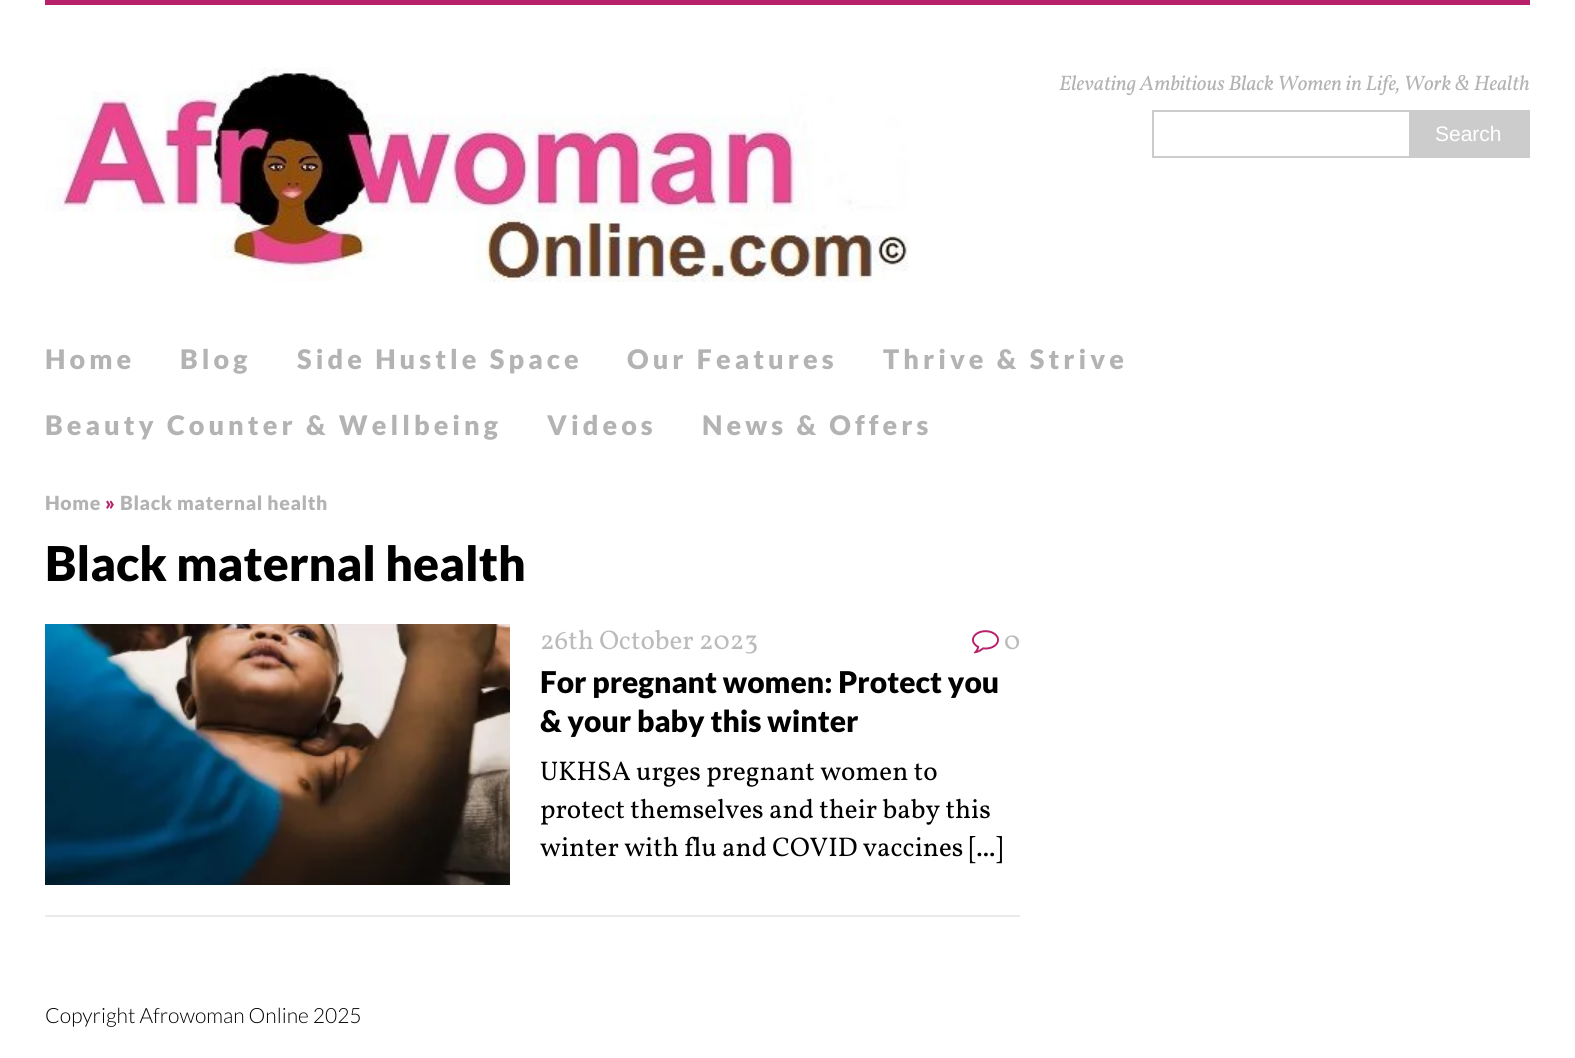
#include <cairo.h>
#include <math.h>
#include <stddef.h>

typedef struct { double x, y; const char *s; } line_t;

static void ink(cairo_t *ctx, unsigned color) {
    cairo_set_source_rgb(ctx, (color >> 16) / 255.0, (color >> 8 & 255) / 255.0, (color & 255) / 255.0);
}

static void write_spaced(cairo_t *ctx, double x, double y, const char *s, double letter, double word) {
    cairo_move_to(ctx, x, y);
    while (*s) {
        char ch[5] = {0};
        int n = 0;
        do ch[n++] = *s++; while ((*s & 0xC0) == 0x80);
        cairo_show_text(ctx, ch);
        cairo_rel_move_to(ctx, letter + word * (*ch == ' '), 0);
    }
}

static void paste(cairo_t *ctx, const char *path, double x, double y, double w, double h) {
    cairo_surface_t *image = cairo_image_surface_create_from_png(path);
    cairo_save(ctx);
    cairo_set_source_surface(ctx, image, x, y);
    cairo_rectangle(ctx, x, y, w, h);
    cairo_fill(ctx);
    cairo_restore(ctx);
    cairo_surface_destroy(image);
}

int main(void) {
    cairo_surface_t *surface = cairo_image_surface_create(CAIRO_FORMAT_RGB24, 1575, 1058);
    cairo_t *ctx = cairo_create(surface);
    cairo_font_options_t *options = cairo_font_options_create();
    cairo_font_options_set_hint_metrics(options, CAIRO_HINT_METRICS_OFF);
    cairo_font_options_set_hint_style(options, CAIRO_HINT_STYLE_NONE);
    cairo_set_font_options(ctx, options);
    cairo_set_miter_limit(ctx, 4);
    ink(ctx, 0xFFFFFF);
    cairo_paint(ctx);
    ink(ctx, 0xB8216A);
    cairo_rectangle(ctx, 45, 0, 1485, 5);
    cairo_fill(ctx);
    paste(ctx, "media/1.png", 45, 67, 864, 215);
    cairo_select_font_face(ctx, "Vollkorn", CAIRO_FONT_SLANT_ITALIC, CAIRO_FONT_WEIGHT_NORMAL);
    cairo_set_font_size(ctx, 21);
    ink(ctx, 0xB3B3B3);
    cairo_move_to(ctx, 1059, 90);
    cairo_show_text(ctx, "Elevating Ambitious Black Women in Life, Work & Health");
    cairo_rectangle(ctx, 1153, 111, 376, 46);
    ink(ctx, 0xCCCCCC);
    cairo_stroke(ctx);
    cairo_rectangle(ctx, 1409, 112, 119, 44);
    cairo_fill(ctx);
    cairo_select_font_face(ctx, "Liberation Sans", CAIRO_FONT_SLANT_NORMAL, CAIRO_FONT_WEIGHT_NORMAL);
    ink(ctx, 0xFFFFFF);
    cairo_move_to(ctx, 1435, 141);
    cairo_show_text(ctx, "Search");
    cairo_select_font_face(ctx, "Lato Black", CAIRO_FONT_SLANT_NORMAL, CAIRO_FONT_WEIGHT_NORMAL);
    cairo_set_font_size(ctx, 27);
    ink(ctx, 0xB3B3B3);
    {
        static const line_t items[] = {
            {45, 369, "Home"},
            {180, 369, "Blog"},
            {297, 369, "Side Hustle Space"},
            {627, 369, "Our Features"},
            {883, 369, "Thrive & Strive"},
            {45, 435, "Beauty Counter & Wellbeing"},
            {547, 435, "Videos"},
            {702, 435, "News & Offers"},
        };
        for (size_t i = 0; i < sizeof items / sizeof *items; i++) {
            write_spaced(ctx, items[i].x, items[i].y, items[i].s, 4.05, 0);
        }
    }
    cairo_set_font_size(ctx, 19.5);
    write_spaced(ctx, 45, 510, "Home", 0.6, 0);
    ink(ctx, 0xB8216A);
    write_spaced(ctx, 105, 510, "»", 0.6, 0);
    ink(ctx, 0xB3B3B3);
    write_spaced(ctx, 120, 510, "Black maternal health", 0.6, 0);
    cairo_set_font_size(ctx, 48);
    ink(ctx, 0x000000);
    cairo_move_to(ctx, 45, 581);
    cairo_show_text(ctx, "Black maternal health");
    ink(ctx, 0xEBEBEB);
    cairo_rectangle(ctx, 45, 915, 975, 2);
    cairo_fill(ctx);
    paste(ctx, "media/2.png", 45, 624, 465, 261);
    cairo_select_font_face(ctx, "Vollkorn", CAIRO_FONT_SLANT_NORMAL, CAIRO_FONT_WEIGHT_NORMAL);
    cairo_set_font_size(ctx, 27);
    ink(ctx, 0xBBBBBB);
    cairo_move_to(ctx, 540, 649);
    cairo_show_text(ctx, "26th October 2023");
    paste(ctx, "media/3.png", 972, 630, 27, 24);
    cairo_move_to(ctx, 1004, 649);
    cairo_show_text(ctx, "0");
    cairo_select_font_face(ctx, "Lato Black", CAIRO_FONT_SLANT_NORMAL, CAIRO_FONT_WEIGHT_NORMAL);
    cairo_set_font_size(ctx, 30);
    ink(ctx, 0x000000);
    cairo_move_to(ctx, 540, 693);
    cairo_show_text(ctx, "For pregnant women: Protect you");
    cairo_move_to(ctx, 540, 732);
    cairo_show_text(ctx, "& your baby this winter");
    cairo_select_font_face(ctx, "Vollkorn", CAIRO_FONT_SLANT_NORMAL, CAIRO_FONT_WEIGHT_NORMAL);
    cairo_set_font_size(ctx, 27);
    {
        static const line_t items[] = {
            {540, 780, "UKHSA urges pregnant women to"},
            {540, 818, "protect themselves and their baby this"},
            {540, 856, "winter with flu and COVID vaccines"},
            {969, 856, "[...]"},
        };
        for (size_t i = 0; i < sizeof items / sizeof *items; i++) {
            cairo_move_to(ctx, items[i].x, items[i].y);
            cairo_show_text(ctx, items[i].s);
        }
    }
    cairo_select_font_face(ctx, "Lato Light", CAIRO_FONT_SLANT_NORMAL, CAIRO_FONT_WEIGHT_NORMAL);
    cairo_set_font_size(ctx, 21);
    cairo_move_to(ctx, 45, 1023);
    cairo_show_text(ctx, "Copyright Afrowoman Online 2025");
    cairo_surface_write_to_png(surface, "image.png");
    cairo_font_options_destroy(options);
    cairo_destroy(ctx);
    cairo_surface_destroy(surface);
    return 0;
}
